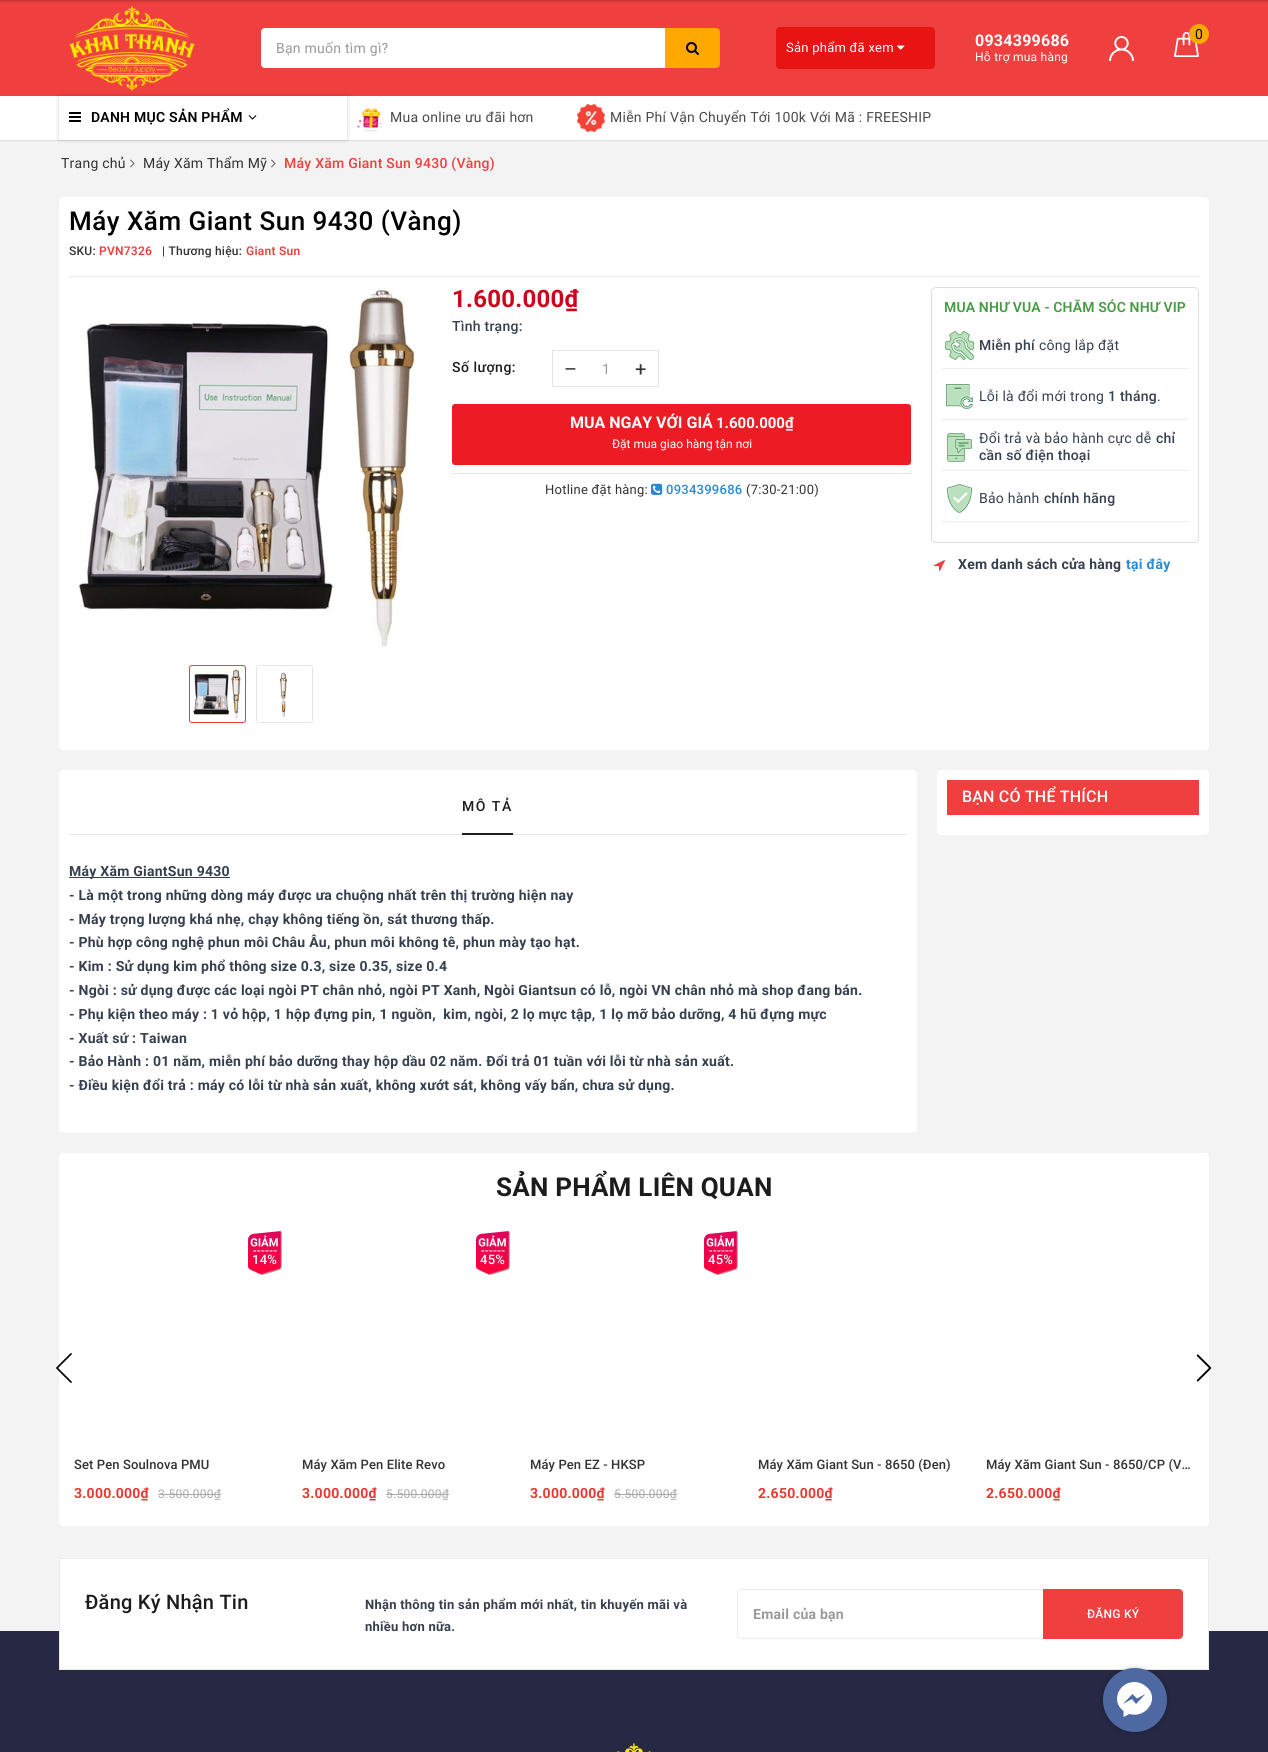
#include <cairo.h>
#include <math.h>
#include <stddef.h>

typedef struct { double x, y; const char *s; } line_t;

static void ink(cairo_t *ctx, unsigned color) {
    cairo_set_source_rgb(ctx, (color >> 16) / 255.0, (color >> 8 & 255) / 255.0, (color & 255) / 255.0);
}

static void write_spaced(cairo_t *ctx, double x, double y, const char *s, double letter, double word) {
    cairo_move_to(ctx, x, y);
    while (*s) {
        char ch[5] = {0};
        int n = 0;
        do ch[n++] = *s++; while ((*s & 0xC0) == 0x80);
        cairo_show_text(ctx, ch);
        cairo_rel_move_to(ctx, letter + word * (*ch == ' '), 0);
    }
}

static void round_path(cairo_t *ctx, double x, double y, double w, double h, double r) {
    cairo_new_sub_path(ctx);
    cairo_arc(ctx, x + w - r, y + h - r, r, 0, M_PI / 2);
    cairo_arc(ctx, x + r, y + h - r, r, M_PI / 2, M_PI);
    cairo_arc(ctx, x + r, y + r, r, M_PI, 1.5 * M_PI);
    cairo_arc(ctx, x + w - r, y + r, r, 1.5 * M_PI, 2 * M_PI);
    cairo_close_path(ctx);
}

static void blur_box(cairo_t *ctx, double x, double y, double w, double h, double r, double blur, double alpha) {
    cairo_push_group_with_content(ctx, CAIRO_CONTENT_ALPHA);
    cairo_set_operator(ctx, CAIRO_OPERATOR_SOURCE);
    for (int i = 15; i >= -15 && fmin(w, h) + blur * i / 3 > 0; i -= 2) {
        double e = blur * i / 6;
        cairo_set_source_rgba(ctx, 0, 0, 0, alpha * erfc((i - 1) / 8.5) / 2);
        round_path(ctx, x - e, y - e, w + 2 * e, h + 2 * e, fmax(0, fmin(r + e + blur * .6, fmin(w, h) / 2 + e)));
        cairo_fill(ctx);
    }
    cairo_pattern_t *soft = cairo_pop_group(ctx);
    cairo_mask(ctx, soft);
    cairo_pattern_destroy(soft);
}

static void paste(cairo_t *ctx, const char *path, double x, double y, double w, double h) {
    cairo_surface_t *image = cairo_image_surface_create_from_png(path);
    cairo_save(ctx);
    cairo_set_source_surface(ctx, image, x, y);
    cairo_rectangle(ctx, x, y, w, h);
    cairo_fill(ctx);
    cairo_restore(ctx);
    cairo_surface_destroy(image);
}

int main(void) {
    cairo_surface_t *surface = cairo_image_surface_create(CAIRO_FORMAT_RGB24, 1268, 1752);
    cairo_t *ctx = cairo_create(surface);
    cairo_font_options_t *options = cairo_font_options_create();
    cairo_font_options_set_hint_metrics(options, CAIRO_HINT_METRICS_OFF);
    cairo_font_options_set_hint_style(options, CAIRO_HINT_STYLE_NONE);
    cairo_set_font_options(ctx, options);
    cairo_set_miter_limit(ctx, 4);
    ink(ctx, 0xF3F3F3);
    cairo_paint(ctx);
    ink(ctx, 0xEF3F3F);
    cairo_rectangle(ctx, 0, 0, 1268, 96);
    cairo_fill(ctx);
    paste(ctx, "media/1.png", 69, 6, 126, 85);
    ink(ctx, 0xFFFFFF);
    round_path(ctx, 261, 28, 454, 40, 4);
    cairo_fill(ctx);
    cairo_select_font_face(ctx, "Roboto", CAIRO_FONT_SLANT_NORMAL, CAIRO_FONT_WEIGHT_NORMAL);
    cairo_set_font_size(ctx, 14);
    ink(ctx, 0x999999);
    write_spaced(ctx, 276, 53, "Bạn muốn tìm gì?", 0.25, 0);
    ink(ctx, 0xFFA800);
    cairo_new_path(ctx);
    cairo_move_to(ctx, 665.5, 28.5);
    cairo_line_to(ctx, 716, 28.5);
    cairo_curve_to(ctx, 718, 28.5, 719.5, 30, 719.5, 32);
    cairo_line_to(ctx, 719.5, 64);
    cairo_curve_to(ctx, 719.5, 66, 718, 67.5, 716, 67.5);
    cairo_line_to(ctx, 665.5, 67.5);
    cairo_close_path(ctx);
    cairo_fill_preserve(ctx);
    cairo_set_line_width(ctx, 1);
    cairo_stroke(ctx);
    paste(ctx, "media/2.png", 686, 42, 13, 13);
    ink(ctx, 0xE81313);
    round_path(ctx, 776, 27, 159, 42, 4);
    cairo_fill(ctx);
    cairo_set_font_size(ctx, 13);
    ink(ctx, 0xFFFFFF);
    write_spaced(ctx, 786, 52, "Sản phẩm đã xem", 0.25, 0);
    paste(ctx, "media/3.png", 897, 45, 8, 5);
    cairo_select_font_face(ctx, "Roboto", CAIRO_FONT_SLANT_NORMAL, CAIRO_FONT_WEIGHT_BOLD);
    cairo_set_font_size(ctx, 16);
    write_spaced(ctx, 975, 46, "0934399686", 0.25, 0);
    cairo_select_font_face(ctx, "Roboto", CAIRO_FONT_SLANT_NORMAL, CAIRO_FONT_WEIGHT_NORMAL);
    cairo_set_font_size(ctx, 12);
    write_spaced(ctx, 975, 61, "Hỗ trợ mua hàng", 0.25, 0);
    paste(ctx, "media/4.png", 1109, 36, 25, 25);
    paste(ctx, "media/5.png", 1174, 32, 25, 25);
    ink(ctx, 0xFFA800);
    cairo_arc(ctx, 1199, 34, 10, 0, 2 * M_PI);
    cairo_fill(ctx);
    cairo_set_font_size(ctx, 14);
    ink(ctx, 0x000000);
    write_spaced(ctx, 1195, 39, "0", 0.25, 0);
    ink(ctx, 0xFFFFFF);
    cairo_rectangle(ctx, 0, 96, 1268, 44);
    cairo_fill(ctx);
    ink(ctx, 0xDDDDDD);
    cairo_rectangle(ctx, 0, 140, 1268, 1);
    cairo_fill(ctx);
    cairo_save(ctx);
    cairo_set_fill_rule(ctx, CAIRO_FILL_RULE_EVEN_ODD);
    cairo_new_path(ctx);
    cairo_move_to(ctx, 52, 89);
    cairo_line_to(ctx, 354, 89);
    cairo_line_to(ctx, 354, 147);
    cairo_line_to(ctx, 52, 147);
    cairo_close_path(ctx);
    cairo_move_to(ctx, 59, 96);
    cairo_line_to(ctx, 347, 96);
    cairo_line_to(ctx, 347, 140);
    cairo_line_to(ctx, 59, 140);
    cairo_close_path(ctx);
    cairo_clip(ctx);
    ink(ctx, 0x000000);
    blur_box(ctx, 59, 96, 288, 44, 0, 2, 0.2);
    cairo_restore(ctx);
    paste(ctx, "media/6.png", 69, 112, 12, 10);
    cairo_select_font_face(ctx, "Roboto SemiBold", CAIRO_FONT_SLANT_NORMAL, CAIRO_FONT_WEIGHT_NORMAL);
    ink(ctx, 0x000000);
    write_spaced(ctx, 91, 122, "DANH MỤC SẢN PHẨM", 0.25, 0);
    paste(ctx, "media/7.png", 248, 115, 9, 5);
    paste(ctx, "media/8.png", 357, 107, 26, 25);
    cairo_select_font_face(ctx, "Roboto", CAIRO_FONT_SLANT_NORMAL, CAIRO_FONT_WEIGHT_NORMAL);
    ink(ctx, 0x4A4A4A);
    write_spaced(ctx, 390, 122, "Mua online ưu đãi hơn", 0.25, 0);
    paste(ctx, "media/9.png", 577, 104, 28, 28);
    write_spaced(ctx, 610, 122, "Miễn Phí Vận Chuyển Tới 100k Với Mã : FREESHIP", 0.25, 0);
    ink(ctx, 0x000000);
    blur_box(ctx, 0, -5, 1268, 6, 0, 1.5, 0.25);
    ink(ctx, 0x333333);
    write_spaced(ctx, 61, 168, "Trang chủ", 0.25, 0);
    paste(ctx, "media/10.png", 130, 159, 5, 9);
    write_spaced(ctx, 143, 168, "Máy Xăm Thẩm Mỹ", 0.25, 0);
    paste(ctx, "media/10.png", 271, 159, 5, 9);
    cairo_select_font_face(ctx, "Roboto Medium", CAIRO_FONT_SLANT_NORMAL, CAIRO_FONT_WEIGHT_NORMAL);
    ink(ctx, 0xEF3F3F);
    write_spaced(ctx, 284, 168, "Máy Xăm Giant Sun 9430 (Vàng)", 0.25, 0);
    ink(ctx, 0xFFFFFF);
    round_path(ctx, 59, 197, 1150, 553, 4);
    cairo_fill(ctx);
    ink(ctx, 0xE9E9E9);
    cairo_rectangle(ctx, 69, 276, 1130, 1);
    cairo_fill(ctx);
    cairo_set_font_size(ctx, 26);
    ink(ctx, 0x000000);
    write_spaced(ctx, 69, 230, "Máy Xăm Giant Sun 9430 (Vàng)", 0.5, 0);
    cairo_set_font_size(ctx, 12);
    ink(ctx, 0x333333);
    write_spaced(ctx, 69, 255, "SKU:", 0.25, 0);
    cairo_select_font_face(ctx, "Roboto SemiBold", CAIRO_FONT_SLANT_NORMAL, CAIRO_FONT_WEIGHT_NORMAL);
    ink(ctx, 0xEF3F3F);
    write_spaced(ctx, 99, 255, "PVN7326", 0.25, 0);
    cairo_select_font_face(ctx, "Roboto Medium", CAIRO_FONT_SLANT_NORMAL, CAIRO_FONT_WEIGHT_NORMAL);
    ink(ctx, 0x333333);
    write_spaced(ctx, 162, 255, "| Thương hiệu:", 0.25, 0);
    cairo_select_font_face(ctx, "Roboto SemiBold", CAIRO_FONT_SLANT_NORMAL, CAIRO_FONT_WEIGHT_NORMAL);
    ink(ctx, 0xEF3F3F);
    write_spaced(ctx, 246, 255, "Giant Sun", 0.25, 0);
    paste(ctx, "media/11.png", 79, 287, 338, 363);
    round_path(ctx, 189.5, 665.5, 56, 57, 2.5);
    cairo_stroke(ctx);
    paste(ctx, "media/12.png", 193, 669, 48, 51);
    round_path(ctx, 256.5, 665.5, 56, 57, 2.5);
    ink(ctx, 0xE6E6E6);
    cairo_stroke(ctx);
    paste(ctx, "media/13.png", 279, 672, 9, 46);
    cairo_select_font_face(ctx, "Roboto", CAIRO_FONT_SLANT_NORMAL, CAIRO_FONT_WEIGHT_BOLD);
    cairo_set_font_size(ctx, 24);
    ink(ctx, 0xD0021B);
    write_spaced(ctx, 452, 307, "1.600.000₫", 0.25, 0);
    cairo_select_font_face(ctx, "Roboto Medium", CAIRO_FONT_SLANT_NORMAL, CAIRO_FONT_WEIGHT_NORMAL);
    cairo_set_font_size(ctx, 14);
    ink(ctx, 0x363F4D);
    write_spaced(ctx, 452, 331, "Tình trạng:", 0.25, 0);
    ink(ctx, 0x1C1C1C);
    write_spaced(ctx, 452, 372, "Số lượng:", 0.5, 0);
    cairo_rectangle(ctx, 552.5, 350.5, 106, 36);
    ink(ctx, 0xE5E5E5);
    cairo_stroke(ctx);
    cairo_select_font_face(ctx, "Roboto", CAIRO_FONT_SLANT_NORMAL, CAIRO_FONT_WEIGHT_NORMAL);
    cairo_set_font_size(ctx, 20);
    ink(ctx, 0x333333);
    write_spaced(ctx, 564, 376, "–", 0.25, 0);
    cairo_set_font_size(ctx, 14);
    ink(ctx, 0x999999);
    write_spaced(ctx, 602, 374, "1", 0.25, 0);
    cairo_set_font_size(ctx, 20);
    ink(ctx, 0x333333);
    write_spaced(ctx, 635, 376, "+", 0.25, 0);
    ink(ctx, 0xED1B24);
    round_path(ctx, 452, 404, 459, 61, 3);
    cairo_fill(ctx);
    cairo_select_font_face(ctx, "Roboto", CAIRO_FONT_SLANT_NORMAL, CAIRO_FONT_WEIGHT_BOLD);
    cairo_set_font_size(ctx, 16);
    ink(ctx, 0xFFFFFF);
    cairo_move_to(ctx, 570, 428);
    cairo_show_text(ctx, "MUA NGAY VỚI GIÁ");
    cairo_set_font_size(ctx, 15);
    cairo_move_to(ctx, 716, 428);
    cairo_show_text(ctx, "1.600.000₫");
    cairo_select_font_face(ctx, "Roboto", CAIRO_FONT_SLANT_NORMAL, CAIRO_FONT_WEIGHT_NORMAL);
    cairo_set_font_size(ctx, 12);
    cairo_move_to(ctx, 612, 448);
    cairo_show_text(ctx, "Đặt mua giao hàng tận nơi");
    ink(ctx, 0xE5E5E5);
    cairo_rectangle(ctx, 452, 473, 459, 1);
    cairo_fill(ctx);
    cairo_set_font_size(ctx, 13);
    ink(ctx, 0x333333);
    write_spaced(ctx, 545, 494, "Hotline đặt hàng:", 0.25, 0);
    paste(ctx, "media/14.png", 651, 483, 12, 12);
    cairo_select_font_face(ctx, "Roboto Medium", CAIRO_FONT_SLANT_NORMAL, CAIRO_FONT_WEIGHT_NORMAL);
    ink(ctx, 0x288AD6);
    write_spaced(ctx, 666, 494, "0934399686", 0.25, 0);
    cairo_select_font_face(ctx, "Roboto", CAIRO_FONT_SLANT_NORMAL, CAIRO_FONT_WEIGHT_NORMAL);
    ink(ctx, 0x333333);
    write_spaced(ctx, 746, 494, "(7:30-21:00)", 0.25, 0);
    round_path(ctx, 931.5, 287.5, 267, 255, 4.5);
    ink(ctx, 0xDDDDDD);
    cairo_stroke(ctx);
    cairo_select_font_face(ctx, "Roboto SemiBold", CAIRO_FONT_SLANT_NORMAL, CAIRO_FONT_WEIGHT_NORMAL);
    cairo_set_font_size(ctx, 14);
    ink(ctx, 0x459B43);
    write_spaced(ctx, 944, 312, "MUA NHƯ VUA - CHĂM SÓC NHƯ VIP", 0.15, 0);
    ink(ctx, 0xECECEC);
    cairo_rectangle(ctx, 942, 368, 246, 1);
    cairo_fill(ctx);
    paste(ctx, "media/15.png", 945, 331, 29, 29);
    cairo_select_font_face(ctx, "Roboto Medium", CAIRO_FONT_SLANT_NORMAL, CAIRO_FONT_WEIGHT_NORMAL);
    ink(ctx, 0x363F4D);
    write_spaced(ctx, 979, 350, "Miễn phí", 0.25, 0);
    cairo_select_font_face(ctx, "Roboto", CAIRO_FONT_SLANT_NORMAL, CAIRO_FONT_WEIGHT_NORMAL);
    write_spaced(ctx, 1039, 350, "công lắp đặt", 0.25, 0);
    ink(ctx, 0xECECEC);
    cairo_rectangle(ctx, 942, 419, 246, 1);
    cairo_fill(ctx);
    paste(ctx, "media/16.png", 946, 384, 27, 25);
    ink(ctx, 0x363F4D);
    write_spaced(ctx, 979, 401, "Lỗi là đổi mới trong", 0.25, 0);
    cairo_select_font_face(ctx, "Roboto Medium", CAIRO_FONT_SLANT_NORMAL, CAIRO_FONT_WEIGHT_NORMAL);
    write_spaced(ctx, 1108, 401, "1 tháng", 0.25, 0);
    cairo_select_font_face(ctx, "Roboto", CAIRO_FONT_SLANT_NORMAL, CAIRO_FONT_WEIGHT_NORMAL);
    write_spaced(ctx, 1157, 401, ".", 0.25, 0);
    ink(ctx, 0xECECEC);
    cairo_rectangle(ctx, 942, 470, 246, 1);
    cairo_fill(ctx);
    paste(ctx, "media/17.png", 947, 433, 25, 29);
    ink(ctx, 0x363F4D);
    write_spaced(ctx, 979, 443, "Đổi trả và bảo hành cực dễ", 0.25, 0);
    cairo_select_font_face(ctx, "Roboto Medium", CAIRO_FONT_SLANT_NORMAL, CAIRO_FONT_WEIGHT_NORMAL);
    write_spaced(ctx, 1156, 443, "chỉ", 0.25, 0);
    write_spaced(ctx, 979, 460, "cần số điện thoại", 0.25, 0);
    ink(ctx, 0xECECEC);
    cairo_rectangle(ctx, 942, 521, 246, 1);
    cairo_fill(ctx);
    paste(ctx, "media/18.png", 947, 484, 25, 29);
    cairo_select_font_face(ctx, "Roboto", CAIRO_FONT_SLANT_NORMAL, CAIRO_FONT_WEIGHT_NORMAL);
    ink(ctx, 0x363F4D);
    write_spaced(ctx, 979, 503, "Bảo hành", 0.25, 0);
    cairo_select_font_face(ctx, "Roboto Medium", CAIRO_FONT_SLANT_NORMAL, CAIRO_FONT_WEIGHT_NORMAL);
    write_spaced(ctx, 1044, 503, "chính hãng", 0.25, 0);
    paste(ctx, "media/19.png", 934, 560, 11, 11);
    cairo_select_font_face(ctx, "Roboto", CAIRO_FONT_SLANT_NORMAL, CAIRO_FONT_WEIGHT_BOLD);
    write_spaced(ctx, 958, 569, "Xem danh sách cửa hàng", 0.25, 0);
    ink(ctx, 0x288AD6);
    write_spaced(ctx, 1126, 569, "tại đây", 0.25, 0);
    ink(ctx, 0xFFFFFF);
    round_path(ctx, 59, 770, 858, 363, 4);
    cairo_fill(ctx);
    ink(ctx, 0xE5E5E5);
    cairo_rectangle(ctx, 69, 834, 838, 1);
    cairo_fill(ctx);
    cairo_select_font_face(ctx, "Roboto Medium", CAIRO_FONT_SLANT_NORMAL, CAIRO_FONT_WEIGHT_NORMAL);
    ink(ctx, 0x1C1C1C);
    write_spaced(ctx, 462, 811, "MÔ TẢ", 1.5, 0);
    cairo_rectangle(ctx, 462, 833, 51, 2);
    cairo_fill(ctx);
    ink(ctx, 0x363F4D);
    cairo_rectangle(ctx, 69, 877, 161, 1);
    cairo_fill(ctx);
    cairo_select_font_face(ctx, "Roboto", CAIRO_FONT_SLANT_NORMAL, CAIRO_FONT_WEIGHT_BOLD);
    {
        static const line_t items[] = {
            {69, 876, "Máy Xăm GiantSun 9430"},
            {69, 900, "- Là một trong những dòng máy được ưa chuộng nhất trên thị trường hiện nay"},
            {69, 924, "- Máy trọng lượng khá nhẹ, chạy không tiếng ồn, sát thương thấp."},
            {69, 947, "- Phù hợp công nghệ phun môi Châu Âu, phun môi không tê, phun mày tạo hạt."},
            {69, 971, "- Kim : Sử dụng kim phổ thông size 0.3, size 0.35, size 0.4"},
            {69, 995, "- Ngòi : sử dụng được các loại ngòi PT chân nhỏ, ngòi PT Xanh, Ngòi Giantsun có lỗ, ngòi VN chân nhỏ mà shop đang bán."},
            {69, 1019, "- Phụ kiện theo máy : 1 vỏ hộp, 1 hộp đựng pin, 1 nguồn,  kim, ngòi, 2 lọ mực tập, 1 lọ mỡ bảo dưỡng, 4 hũ đựng mực"},
            {69, 1043, "- Xuất sứ : Taiwan"},
            {69, 1066, "- Bảo Hành : 01 năm, miễn phí bảo dưỡng thay hộp dầu 02 năm. Đổi trả 01 tuần với lỗi từ nhà sản xuất."},
            {69, 1090, "- Điều kiện đổi trả : máy có lỗi từ nhà sản xuất, không xướt sát, không vấy bẩn, chưa sử dụng."},
        };
        for (size_t i = 0; i < sizeof items / sizeof *items; i++) {
            write_spaced(ctx, items[i].x, items[i].y, items[i].s, 0.25, 0);
        }
    }
    ink(ctx, 0xFFFFFF);
    round_path(ctx, 937, 770, 272, 65, 4);
    cairo_fill(ctx);
    ink(ctx, 0xEF3F3F);
    cairo_rectangle(ctx, 947, 780, 252, 35);
    cairo_fill(ctx);
    cairo_select_font_face(ctx, "Roboto Medium", CAIRO_FONT_SLANT_NORMAL, CAIRO_FONT_WEIGHT_NORMAL);
    cairo_set_font_size(ctx, 16);
    ink(ctx, 0xFFFFFF);
    write_spaced(ctx, 962, 802, "BẠN CÓ THỂ THÍCH", 0.2, 0);
    round_path(ctx, 59, 1153, 1150, 373, 4);
    cairo_fill(ctx);
    cairo_select_font_face(ctx, "Roboto", CAIRO_FONT_SLANT_NORMAL, CAIRO_FONT_WEIGHT_BOLD);
    cairo_set_font_size(ctx, 26);
    ink(ctx, 0x1C1C1C);
    write_spaced(ctx, 496, 1196, "SẢN PHẨM LIÊN QUAN", 0.25, 0);
    paste(ctx, "media/20.png", 56, 1353, 16, 30);
    paste(ctx, "media/21.png", 248, 1231, 34, 44);
    cairo_select_font_face(ctx, "Roboto Medium", CAIRO_FONT_SLANT_NORMAL, CAIRO_FONT_WEIGHT_NORMAL);
    cairo_set_font_size(ctx, 13);
    ink(ctx, 0xFFFFFF);
    write_spaced(ctx, 252, 1264, "14%", 0.25, 0);
    ink(ctx, 0x333333);
    write_spaced(ctx, 74, 1469, "Set Pen Soulnova PMU", 0.1, 0);
    cairo_select_font_face(ctx, "Roboto", CAIRO_FONT_SLANT_NORMAL, CAIRO_FONT_WEIGHT_BOLD);
    cairo_set_font_size(ctx, 14);
    ink(ctx, 0xE53935);
    write_spaced(ctx, 74, 1498, "3.000.000₫", 0.25, 0);
    cairo_select_font_face(ctx, "Roboto", CAIRO_FONT_SLANT_NORMAL, CAIRO_FONT_WEIGHT_NORMAL);
    cairo_set_font_size(ctx, 12);
    ink(ctx, 0xA9A9A9);
    write_spaced(ctx, 158, 1498, "3.500.000₫", 0.25, 0);
    cairo_rectangle(ctx, 158, 1494, 63, 1);
    cairo_fill(ctx);
    paste(ctx, "media/21.png", 476, 1231, 34, 44);
    cairo_select_font_face(ctx, "Roboto Medium", CAIRO_FONT_SLANT_NORMAL, CAIRO_FONT_WEIGHT_NORMAL);
    cairo_set_font_size(ctx, 13);
    ink(ctx, 0xFFFFFF);
    write_spaced(ctx, 480, 1264, "45%", 0.25, 0);
    ink(ctx, 0x333333);
    write_spaced(ctx, 302, 1469, "Máy Xăm Pen Elite Revo", 0.1, 0);
    cairo_select_font_face(ctx, "Roboto", CAIRO_FONT_SLANT_NORMAL, CAIRO_FONT_WEIGHT_BOLD);
    cairo_set_font_size(ctx, 14);
    ink(ctx, 0xE53935);
    write_spaced(ctx, 302, 1498, "3.000.000₫", 0.25, 0);
    cairo_select_font_face(ctx, "Roboto", CAIRO_FONT_SLANT_NORMAL, CAIRO_FONT_WEIGHT_NORMAL);
    cairo_set_font_size(ctx, 12);
    ink(ctx, 0xA9A9A9);
    write_spaced(ctx, 386, 1498, "5.500.000₫", 0.25, 0);
    cairo_rectangle(ctx, 386, 1494, 63, 1);
    cairo_fill(ctx);
    paste(ctx, "media/21.png", 704, 1231, 34, 44);
    cairo_select_font_face(ctx, "Roboto Medium", CAIRO_FONT_SLANT_NORMAL, CAIRO_FONT_WEIGHT_NORMAL);
    cairo_set_font_size(ctx, 13);
    ink(ctx, 0xFFFFFF);
    write_spaced(ctx, 708, 1264, "45%", 0.25, 0);
    ink(ctx, 0x333333);
    write_spaced(ctx, 530, 1469, "Máy Pen EZ - HKSP", 0.1, 0);
    cairo_select_font_face(ctx, "Roboto", CAIRO_FONT_SLANT_NORMAL, CAIRO_FONT_WEIGHT_BOLD);
    cairo_set_font_size(ctx, 14);
    ink(ctx, 0xE53935);
    write_spaced(ctx, 530, 1498, "3.000.000₫", 0.25, 0);
    cairo_select_font_face(ctx, "Roboto", CAIRO_FONT_SLANT_NORMAL, CAIRO_FONT_WEIGHT_NORMAL);
    cairo_set_font_size(ctx, 12);
    ink(ctx, 0xA9A9A9);
    write_spaced(ctx, 614, 1498, "5.500.000₫", 0.25, 0);
    cairo_rectangle(ctx, 614, 1494, 63, 1);
    cairo_fill(ctx);
    cairo_select_font_face(ctx, "Roboto Medium", CAIRO_FONT_SLANT_NORMAL, CAIRO_FONT_WEIGHT_NORMAL);
    cairo_set_font_size(ctx, 13);
    ink(ctx, 0x333333);
    write_spaced(ctx, 758, 1469, "Máy Xăm Giant Sun - 8650 (Đen)", 0.1, 0);
    cairo_select_font_face(ctx, "Roboto", CAIRO_FONT_SLANT_NORMAL, CAIRO_FONT_WEIGHT_BOLD);
    cairo_set_font_size(ctx, 14);
    ink(ctx, 0xE53935);
    write_spaced(ctx, 758, 1498, "2.650.000₫", 0.25, 0);
    cairo_select_font_face(ctx, "Roboto Medium", CAIRO_FONT_SLANT_NORMAL, CAIRO_FONT_WEIGHT_NORMAL);
    cairo_set_font_size(ctx, 13);
    ink(ctx, 0x333333);
    write_spaced(ctx, 986, 1469, "Máy Xăm Giant Sun - 8650/CP (V…", 0.1, 0);
    cairo_select_font_face(ctx, "Roboto", CAIRO_FONT_SLANT_NORMAL, CAIRO_FONT_WEIGHT_BOLD);
    cairo_set_font_size(ctx, 14);
    ink(ctx, 0xE53935);
    write_spaced(ctx, 986, 1498, "2.650.000₫", 0.25, 0);
    paste(ctx, "media/22.png", 1196, 1354, 16, 28);
    ink(ctx, 0x262844);
    cairo_rectangle(ctx, 0, 1631, 1268, 121);
    cairo_fill(ctx);
    ink(ctx, 0xFFFFFF);
    cairo_rectangle(ctx, 59.5, 1558.5, 1149, 111);
    cairo_fill_preserve(ctx);
    ink(ctx, 0xEBEBEB);
    cairo_stroke(ctx);
    cairo_select_font_face(ctx, "Roboto Medium", CAIRO_FONT_SLANT_NORMAL, CAIRO_FONT_WEIGHT_NORMAL);
    cairo_set_font_size(ctx, 20);
    ink(ctx, 0x1C1C1C);
    write_spaced(ctx, 85, 1609, "Đăng Ký Nhận Tin", 0.25, 0);
    cairo_select_font_face(ctx, "Roboto", CAIRO_FONT_SLANT_NORMAL, CAIRO_FONT_WEIGHT_BOLD);
    cairo_set_font_size(ctx, 13);
    ink(ctx, 0x363F4D);
    write_spaced(ctx, 365, 1609, "Nhận thông tin sản phẩm mới nhất, tin khuyến mãi và", 0.25, 0);
    write_spaced(ctx, 365, 1631, "nhiều hơn nữa.", 0.25, 0);
    round_path(ctx, 737.5, 1589.5, 445, 49, 3.5);
    ink(ctx, 0xEBEBEB);
    cairo_stroke(ctx);
    cairo_set_font_size(ctx, 14);
    ink(ctx, 0x999999);
    write_spaced(ctx, 753, 1619, "Email của bạn", 0.25, 0);
    ink(ctx, 0xEF3F3F);
    cairo_new_path(ctx);
    cairo_move_to(ctx, 1043, 1589);
    cairo_line_to(ctx, 1179, 1589);
    cairo_curve_to(ctx, 1181, 1589, 1183, 1591, 1183, 1593);
    cairo_line_to(ctx, 1183, 1635);
    cairo_curve_to(ctx, 1183, 1637, 1181, 1639, 1179, 1639);
    cairo_line_to(ctx, 1043, 1639);
    cairo_close_path(ctx);
    cairo_fill(ctx);
    cairo_select_font_face(ctx, "Roboto Medium", CAIRO_FONT_SLANT_NORMAL, CAIRO_FONT_WEIGHT_NORMAL);
    cairo_set_font_size(ctx, 12);
    ink(ctx, 0xFFFFFF);
    write_spaced(ctx, 1087, 1618, "ĐĂNG KÝ", 0.25, 0);
    paste(ctx, "media/23.png", 616, 1743, 35, 9);
    ink(ctx, 0x000000);
    blur_box(ctx, 1103, 1668, 64, 64, 32, 2.5, 0.2);
    ink(ctx, 0x4E69A2);
    cairo_arc(ctx, 1135, 1700, 32, 0, 2 * M_PI);
    cairo_fill(ctx);
    ink(ctx, 0xFFFFFF);
    cairo_new_path(ctx);
    cairo_move_to(ctx, 1134.5, 1682);
    cairo_curve_to(ctx, 1118.5, 1682, 1110.5, 1701.5, 1123.5, 1711);
    cairo_line_to(ctx, 1123.5, 1717);
    cairo_line_to(ctx, 1129.5, 1714);
    cairo_curve_to(ctx, 1146.5, 1719, 1161, 1697.5, 1145.5, 1686);
    cairo_curve_to(ctx, 1142.5, 1683.5, 1138.5, 1682, 1134.5, 1682);
    cairo_close_path(ctx);
    cairo_move_to(ctx, 1136, 1704);
    cairo_line_to(ctx, 1132, 1699);
    cairo_line_to(ctx, 1123, 1704);
    cairo_line_to(ctx, 1132.5, 1694);
    cairo_line_to(ctx, 1137, 1698.5);
    cairo_line_to(ctx, 1145.5, 1694);
    cairo_close_path(ctx);
    cairo_fill(ctx);
    cairo_surface_write_to_png(surface, "image.png");
    cairo_font_options_destroy(options);
    cairo_destroy(ctx);
    cairo_surface_destroy(surface);
    return 0;
}
